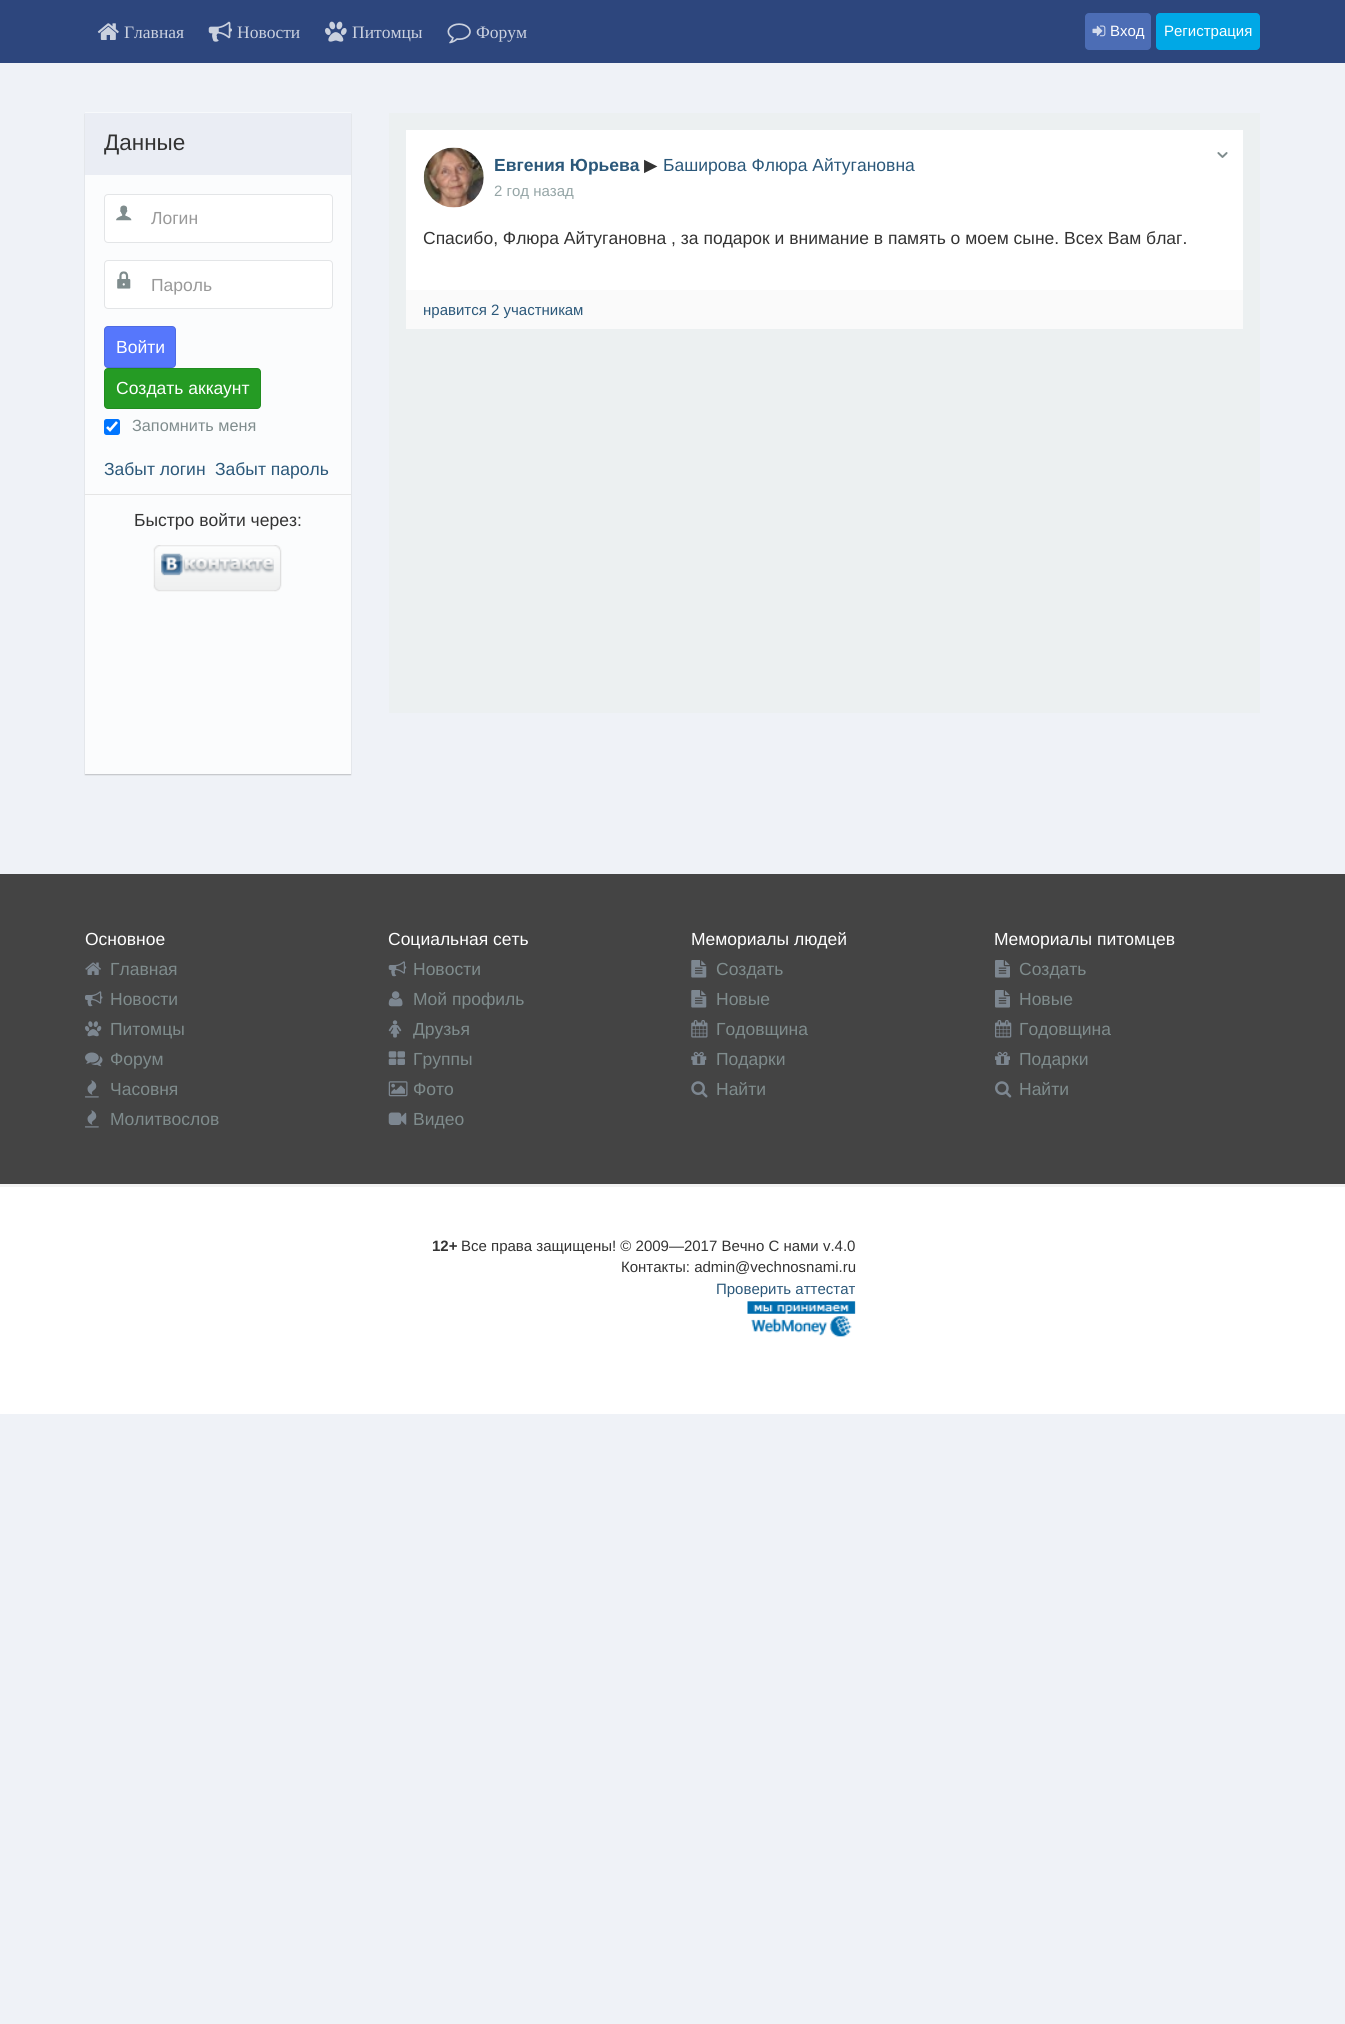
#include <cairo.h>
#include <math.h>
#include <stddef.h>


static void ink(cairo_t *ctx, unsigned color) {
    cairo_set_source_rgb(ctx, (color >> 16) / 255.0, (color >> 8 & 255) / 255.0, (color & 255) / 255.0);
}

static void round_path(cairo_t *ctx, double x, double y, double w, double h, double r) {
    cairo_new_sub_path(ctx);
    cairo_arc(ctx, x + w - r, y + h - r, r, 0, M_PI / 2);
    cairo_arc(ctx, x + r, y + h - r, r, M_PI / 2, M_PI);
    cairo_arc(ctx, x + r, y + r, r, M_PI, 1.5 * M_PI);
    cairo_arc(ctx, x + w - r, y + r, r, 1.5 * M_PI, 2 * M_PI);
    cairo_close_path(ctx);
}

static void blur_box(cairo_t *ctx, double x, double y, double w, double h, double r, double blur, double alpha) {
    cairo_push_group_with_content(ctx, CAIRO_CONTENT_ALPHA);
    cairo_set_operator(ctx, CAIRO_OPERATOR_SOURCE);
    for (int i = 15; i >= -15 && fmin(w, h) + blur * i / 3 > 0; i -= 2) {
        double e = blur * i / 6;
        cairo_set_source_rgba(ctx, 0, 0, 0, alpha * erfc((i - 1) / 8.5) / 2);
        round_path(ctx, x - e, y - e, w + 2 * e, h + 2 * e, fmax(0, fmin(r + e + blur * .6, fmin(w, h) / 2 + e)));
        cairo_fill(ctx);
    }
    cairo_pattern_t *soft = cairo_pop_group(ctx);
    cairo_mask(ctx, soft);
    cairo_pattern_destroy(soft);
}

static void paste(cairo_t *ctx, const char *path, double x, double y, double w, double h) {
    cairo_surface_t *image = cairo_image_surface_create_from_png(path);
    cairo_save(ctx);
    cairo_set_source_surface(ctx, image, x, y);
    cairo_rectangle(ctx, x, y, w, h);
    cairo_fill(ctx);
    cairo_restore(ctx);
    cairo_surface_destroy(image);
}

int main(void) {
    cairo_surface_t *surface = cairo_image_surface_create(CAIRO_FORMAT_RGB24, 1345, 2024);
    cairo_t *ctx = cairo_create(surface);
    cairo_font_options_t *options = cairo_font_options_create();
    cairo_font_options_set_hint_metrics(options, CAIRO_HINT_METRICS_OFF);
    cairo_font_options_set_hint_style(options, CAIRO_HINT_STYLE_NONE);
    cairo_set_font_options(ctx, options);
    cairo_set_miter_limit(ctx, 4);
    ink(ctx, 0xEFF2F7);
    cairo_paint(ctx);
    ink(ctx, 0x2D467D);
    cairo_rectangle(ctx, 0, 0, 1345, 63);
    cairo_fill(ctx);
    paste(ctx, "media/1.png", 97, 23, 22, 17);
    cairo_select_font_face(ctx, "Liberation Serif", CAIRO_FONT_SLANT_NORMAL, CAIRO_FONT_WEIGHT_NORMAL);
    cairo_set_font_size(ctx, 17.5);
    ink(ctx, 0xCBD1DF);
    cairo_move_to(ctx, 124, 38);
    cairo_show_text(ctx, "Главная");
    paste(ctx, "media/2.png", 208, 21, 24, 21);
    cairo_move_to(ctx, 237, 38);
    cairo_show_text(ctx, "Новости");
    paste(ctx, "media/3.png", 325, 21, 22, 21);
    cairo_move_to(ctx, 352, 38);
    cairo_show_text(ctx, "Питомцы");
    paste(ctx, "media/4.png", 447, 23, 24, 21);
    cairo_move_to(ctx, 476, 38);
    cairo_show_text(ctx, "Форум");
    ink(ctx, 0x4C6DB5);
    round_path(ctx, 1085, 13, 66, 37, 4);
    cairo_fill(ctx);
    paste(ctx, "media/5.png", 1092, 25, 14, 12);
    cairo_select_font_face(ctx, "Liberation Sans", CAIRO_FONT_SLANT_NORMAL, CAIRO_FONT_WEIGHT_NORMAL);
    cairo_set_font_size(ctx, 15);
    ink(ctx, 0xFFFFFF);
    cairo_move_to(ctx, 1110, 36);
    cairo_show_text(ctx, "Вход");
    ink(ctx, 0x00A8E6);
    round_path(ctx, 1156, 13, 104, 37, 4);
    cairo_fill(ctx);
    ink(ctx, 0xFFFFFF);
    cairo_move_to(ctx, 1164, 36);
    cairo_show_text(ctx, "Регистрация");
    cairo_save(ctx);
    cairo_set_fill_rule(ctx, CAIRO_FILL_RULE_EVEN_ODD);
    cairo_new_path(ctx);
    cairo_move_to(ctx, 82, 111);
    cairo_line_to(ctx, 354, 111);
    cairo_line_to(ctx, 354, 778);
    cairo_line_to(ctx, 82, 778);
    cairo_close_path(ctx);
    cairo_move_to(ctx, 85, 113);
    cairo_line_to(ctx, 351, 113);
    cairo_line_to(ctx, 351, 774);
    cairo_line_to(ctx, 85, 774);
    cairo_close_path(ctx);
    cairo_clip(ctx);
    ink(ctx, 0x000000);
    blur_box(ctx, 85, 114, 266, 661, 0, 0.5, 0.2);
    cairo_restore(ctx);
    cairo_set_source_rgba(ctx, 1, 1, 1, 0.5);
    cairo_rectangle(ctx, 85, 112, 266, 662);
    cairo_fill(ctx);
    ink(ctx, 0xEAEDF4);
    cairo_rectangle(ctx, 85, 113, 266, 62);
    cairo_fill(ctx);
    cairo_set_font_size(ctx, 22.5);
    ink(ctx, 0x333333);
    cairo_move_to(ctx, 104, 150);
    cairo_show_text(ctx, "Данные");
    cairo_set_source_rgba(ctx, 1, 1, 1, 0.5);
    cairo_rectangle(ctx, 85, 175, 266, 599);
    cairo_fill(ctx);
    ink(ctx, 0xFFFFFF);
    round_path(ctx, 104.5, 194.5, 228, 48, 3.5);
    cairo_fill_preserve(ctx);
    ink(ctx, 0xE3E5E7);
    cairo_set_line_width(ctx, 1);
    cairo_stroke(ctx);
    paste(ctx, "media/6.png", 116, 205, 16, 16);
    cairo_set_font_size(ctx, 17.5);
    ink(ctx, 0x999999);
    cairo_move_to(ctx, 151, 224);
    cairo_show_text(ctx, "Логин");
    ink(ctx, 0xFFFFFF);
    round_path(ctx, 104.5, 260.5, 228, 48, 3.5);
    cairo_fill_preserve(ctx);
    ink(ctx, 0xE3E5E7);
    cairo_stroke(ctx);
    paste(ctx, "media/7.png", 117, 271, 14, 18);
    ink(ctx, 0x999999);
    cairo_move_to(ctx, 151, 291);
    cairo_show_text(ctx, "Пароль");
    ink(ctx, 0x5677FC);
    round_path(ctx, 104, 326, 72, 42, 4);
    cairo_fill(ctx);
    round_path(ctx, 104.5, 326.5, 71, 41, 3.5);
    cairo_set_source_rgba(ctx, 0, 0, 0, 0.1);
    cairo_stroke(ctx);
    ink(ctx, 0xFFFFFF);
    cairo_move_to(ctx, 116, 353);
    cairo_show_text(ctx, "Войти");
    ink(ctx, 0x259B24);
    round_path(ctx, 104, 368, 157, 41, 4);
    cairo_fill(ctx);
    round_path(ctx, 104.5, 368.5, 156, 40, 3.5);
    cairo_set_source_rgba(ctx, 0, 0, 0, 0.1);
    cairo_stroke(ctx);
    ink(ctx, 0xFFFFFF);
    cairo_move_to(ctx, 116, 394);
    cairo_show_text(ctx, "Создать аккаунт");
    ink(ctx, 0x0075FF);
    round_path(ctx, 104, 419, 16, 16, 2.5);
    cairo_fill(ctx);
    cairo_new_path(ctx);
    cairo_move_to(ctx, 107, 427);
    cairo_line_to(ctx, 110, 430);
    cairo_line_to(ctx, 117, 422);
    ink(ctx, 0xFFFFFF);
    cairo_set_line_width(ctx, 2.6);
    cairo_stroke(ctx);
    cairo_set_font_size(ctx, 16.25);
    ink(ctx, 0x7F8C8D);
    cairo_move_to(ctx, 132, 431);
    cairo_show_text(ctx, "Запомнить меня");
    cairo_set_font_size(ctx, 17.5);
    ink(ctx, 0x2B587A);
    cairo_move_to(ctx, 104, 475);
    cairo_show_text(ctx, "Забыт логин");
    cairo_move_to(ctx, 215, 475);
    cairo_show_text(ctx, "Забыт пароль");
    ink(ctx, 0xE5E5E5);
    cairo_rectangle(ctx, 85, 494, 266, 1);
    cairo_fill(ctx);
    ink(ctx, 0x333333);
    cairo_move_to(ctx, 134, 526);
    cairo_show_text(ctx, "Быстро войти через:");
    paste(ctx, "media/8.png", 153, 545, 129, 47);
    paste(ctx, "media/9.png", 161, 553, 113, 23);
    ink(ctx, 0xECF0F1);
    cairo_rectangle(ctx, 389, 113, 871, 600);
    cairo_fill(ctx);
    ink(ctx, 0xFFFFFF);
    cairo_rectangle(ctx, 406, 130, 837, 160);
    cairo_fill(ctx);
    paste(ctx, "media/10.png", 423, 147, 61, 61);
    paste(ctx, "media/11.png", 1217, 152, 11, 6);
    cairo_select_font_face(ctx, "Liberation Sans", CAIRO_FONT_SLANT_NORMAL, CAIRO_FONT_WEIGHT_BOLD);
    ink(ctx, 0x2B587A);
    cairo_move_to(ctx, 494, 171);
    cairo_show_text(ctx, "Евгения Юрьева");
    cairo_select_font_face(ctx, "DejaVu Sans", CAIRO_FONT_SLANT_NORMAL, CAIRO_FONT_WEIGHT_NORMAL);
    ink(ctx, 0x333333);
    cairo_move_to(ctx, 644, 171);
    cairo_show_text(ctx, "▶");
    cairo_select_font_face(ctx, "Liberation Sans", CAIRO_FONT_SLANT_NORMAL, CAIRO_FONT_WEIGHT_NORMAL);
    ink(ctx, 0x2B587A);
    cairo_move_to(ctx, 663, 171);
    cairo_show_text(ctx, "Баширова Флюра Айтугановна");
    cairo_set_font_size(ctx, 15);
    ink(ctx, 0x95A5A6);
    cairo_move_to(ctx, 494, 196);
    cairo_show_text(ctx, "2 год назад");
    cairo_set_font_size(ctx, 17.5);
    ink(ctx, 0x333333);
    cairo_move_to(ctx, 423, 244);
    cairo_show_text(ctx, "Спасибо, Флюра Айтугановна , за подарок и внимание в память о моем сыне. Всех Вам благ.");
    ink(ctx, 0xFAFAFA);
    cairo_rectangle(ctx, 406, 290, 837, 39);
    cairo_fill(ctx);
    cairo_set_font_size(ctx, 15);
    ink(ctx, 0x2B587A);
    cairo_move_to(ctx, 423, 315);
    cairo_show_text(ctx, "нравится 2 участникам");
    ink(ctx, 0x444444);
    cairo_rectangle(ctx, 0, 874, 1345, 310);
    cairo_fill(ctx);
    cairo_set_font_size(ctx, 17.5);
    ink(ctx, 0xFFFFFF);
    cairo_move_to(ctx, 85, 945);
    cairo_show_text(ctx, "Основное");
    paste(ctx, "media/12.png", 85, 962, 16, 13);
    ink(ctx, 0x7F8C8D);
    cairo_move_to(ctx, 110, 975);
    cairo_show_text(ctx, "Главная");
    paste(ctx, "media/13.png", 85, 991, 18, 16);
    cairo_move_to(ctx, 110, 1005);
    cairo_show_text(ctx, "Новости");
    paste(ctx, "media/14.png", 85, 1021, 17, 16);
    cairo_move_to(ctx, 110, 1035);
    cairo_show_text(ctx, "Питомцы");
    paste(ctx, "media/15.png", 85, 1052, 18, 15);
    cairo_move_to(ctx, 110, 1065);
    cairo_show_text(ctx, "Форум");
    paste(ctx, "media/16.png", 85, 1080, 14, 18);
    cairo_move_to(ctx, 110, 1095);
    cairo_show_text(ctx, "Часовня");
    paste(ctx, "media/16.png", 85, 1110, 14, 18);
    cairo_move_to(ctx, 110, 1125);
    cairo_show_text(ctx, "Молитвослов");
    ink(ctx, 0xFFFFFF);
    cairo_move_to(ctx, 388, 945);
    cairo_show_text(ctx, "Социальная сеть");
    paste(ctx, "media/17.png", 388, 961, 19, 16);
    ink(ctx, 0x7F8C8D);
    cairo_move_to(ctx, 413, 975);
    cairo_show_text(ctx, "Новости");
    paste(ctx, "media/18.png", 388, 991, 15, 16);
    cairo_move_to(ctx, 413, 1005);
    cairo_show_text(ctx, "Мой профиль");
    paste(ctx, "media/19.png", 388, 1020, 14, 18);
    cairo_move_to(ctx, 413, 1035);
    cairo_show_text(ctx, "Друзья");
    paste(ctx, "media/20.png", 388, 1051, 17, 14);
    cairo_move_to(ctx, 413, 1065);
    cairo_show_text(ctx, "Группы");
    paste(ctx, "media/21.png", 388, 1081, 20, 16);
    cairo_move_to(ctx, 413, 1095);
    cairo_show_text(ctx, "Фото");
    paste(ctx, "media/22.png", 388, 1112, 19, 13);
    cairo_move_to(ctx, 413, 1125);
    cairo_show_text(ctx, "Видео");
    ink(ctx, 0xFFFFFF);
    cairo_move_to(ctx, 691, 945);
    cairo_show_text(ctx, "Мемориалы людей");
    paste(ctx, "media/23.png", 691, 960, 16, 18);
    ink(ctx, 0x7F8C8D);
    cairo_move_to(ctx, 716, 975);
    cairo_show_text(ctx, "Создать");
    paste(ctx, "media/23.png", 691, 990, 16, 18);
    cairo_move_to(ctx, 716, 1005);
    cairo_show_text(ctx, "Новые");
    paste(ctx, "media/24.png", 691, 1020, 17, 18);
    cairo_move_to(ctx, 716, 1035);
    cairo_show_text(ctx, "Годовщина");
    paste(ctx, "media/25.png", 691, 1051, 16, 14);
    cairo_move_to(ctx, 716, 1065);
    cairo_show_text(ctx, "Подарки");
    paste(ctx, "media/26.png", 691, 1081, 17, 17);
    cairo_move_to(ctx, 716, 1095);
    cairo_show_text(ctx, "Найти");
    ink(ctx, 0xFFFFFF);
    cairo_move_to(ctx, 994, 945);
    cairo_show_text(ctx, "Мемориалы питомцев");
    paste(ctx, "media/27.png", 995, 960, 15, 18);
    ink(ctx, 0x7F8C8D);
    cairo_move_to(ctx, 1019, 975);
    cairo_show_text(ctx, "Создать");
    paste(ctx, "media/27.png", 995, 990, 15, 18);
    cairo_move_to(ctx, 1019, 1005);
    cairo_show_text(ctx, "Новые");
    paste(ctx, "media/28.png", 995, 1020, 17, 18);
    cairo_move_to(ctx, 1019, 1035);
    cairo_show_text(ctx, "Годовщина");
    paste(ctx, "media/29.png", 995, 1051, 15, 14);
    cairo_move_to(ctx, 1019, 1065);
    cairo_show_text(ctx, "Подарки");
    paste(ctx, "media/30.png", 995, 1081, 17, 17);
    cairo_move_to(ctx, 1019, 1095);
    cairo_show_text(ctx, "Найти");
    ink(ctx, 0xFFFFFF);
    cairo_rectangle(ctx, 0, 1187, 1345, 227);
    cairo_fill(ctx);
    ink(ctx, 0xF2F2F2);
    cairo_rectangle(ctx, 0, 1184, 1345, 3);
    cairo_fill(ctx);
    cairo_select_font_face(ctx, "Liberation Sans", CAIRO_FONT_SLANT_NORMAL, CAIRO_FONT_WEIGHT_BOLD);
    cairo_set_font_size(ctx, 15);
    ink(ctx, 0x333333);
    cairo_move_to(ctx, 432, 1251);
    cairo_show_text(ctx, "12+");
    cairo_select_font_face(ctx, "Liberation Sans", CAIRO_FONT_SLANT_NORMAL, CAIRO_FONT_WEIGHT_NORMAL);
    cairo_move_to(ctx, 461, 1251);
    cairo_show_text(ctx, "Все права защищены! © 2009—2017 Вечно С нами v.4.0");
    cairo_move_to(ctx, 621, 1272);
    cairo_show_text(ctx, "Контакты: admin@vechnosnami.ru");
    ink(ctx, 0x2B587A);
    cairo_move_to(ctx, 716, 1294);
    cairo_show_text(ctx, "Проверить аттестат");
    paste(ctx, "media/31.png", 747, 1301, 109, 36);
    cairo_surface_write_to_png(surface, "image.png");
    cairo_font_options_destroy(options);
    cairo_destroy(ctx);
    cairo_surface_destroy(surface);
    return 0;
}
